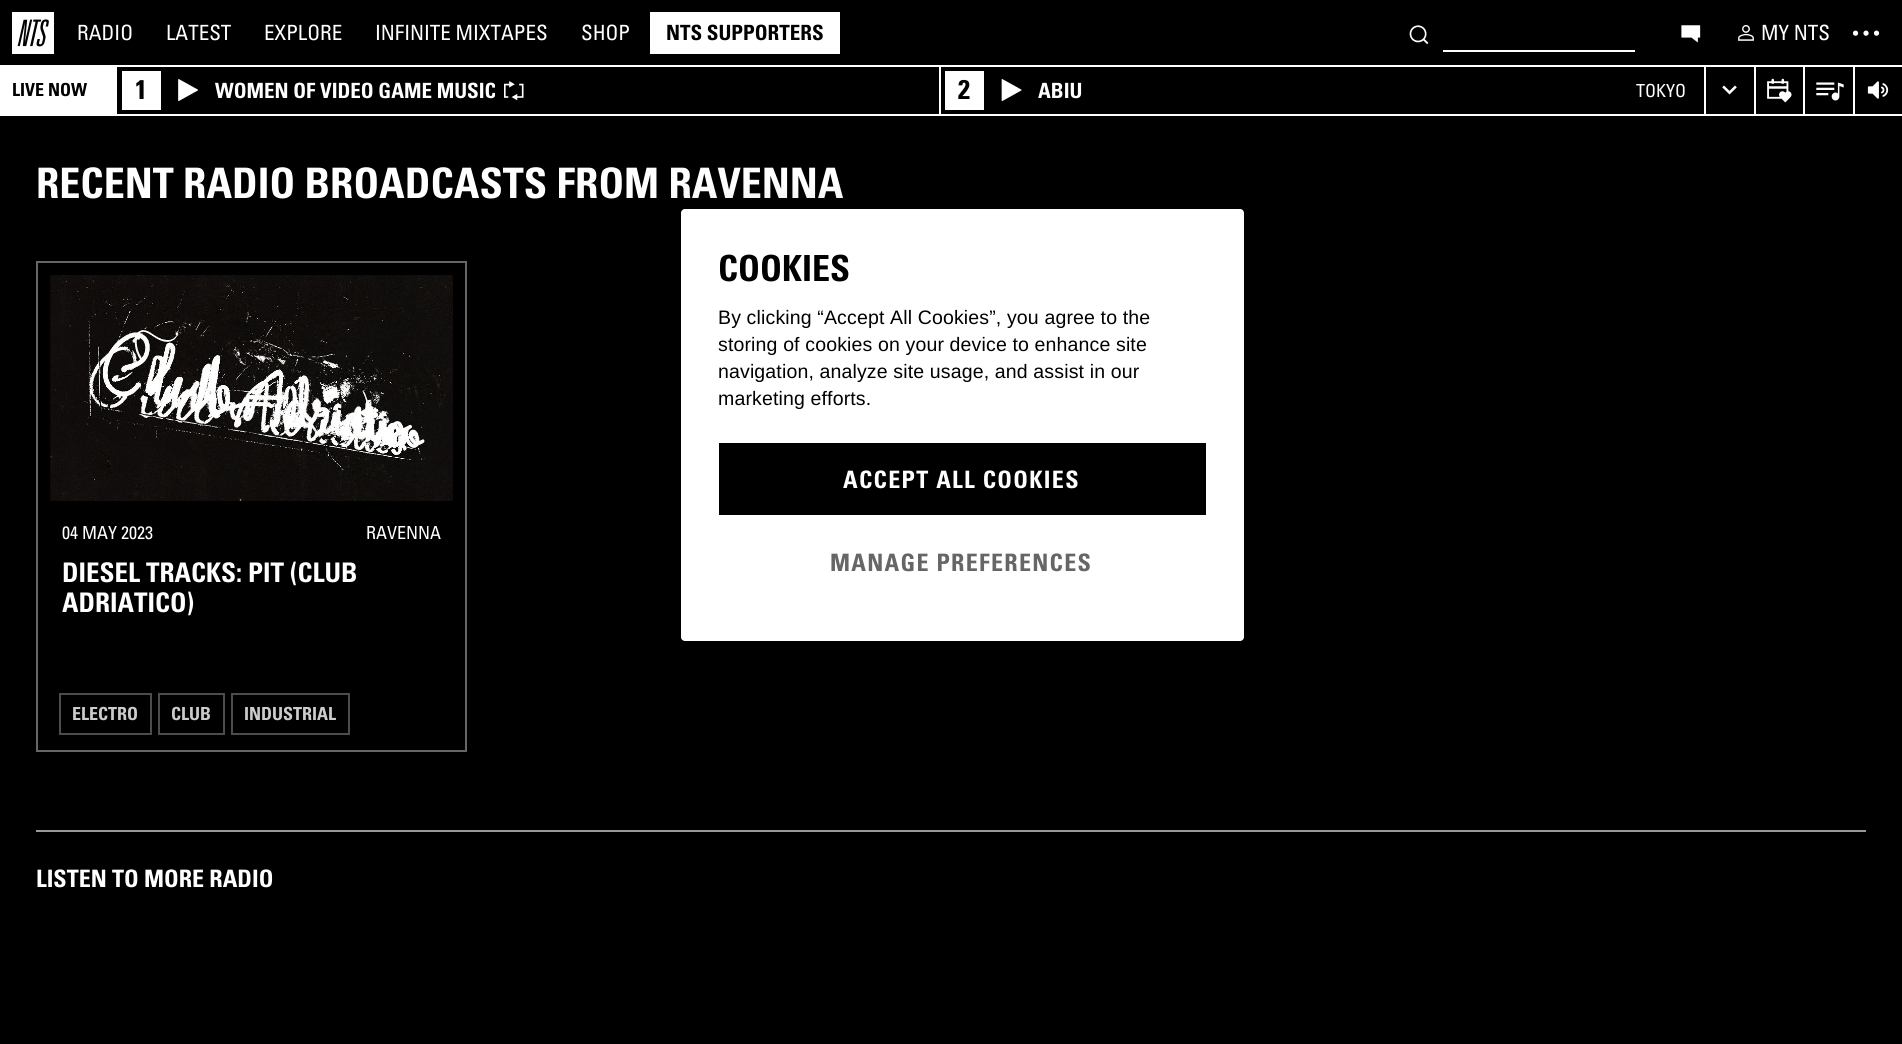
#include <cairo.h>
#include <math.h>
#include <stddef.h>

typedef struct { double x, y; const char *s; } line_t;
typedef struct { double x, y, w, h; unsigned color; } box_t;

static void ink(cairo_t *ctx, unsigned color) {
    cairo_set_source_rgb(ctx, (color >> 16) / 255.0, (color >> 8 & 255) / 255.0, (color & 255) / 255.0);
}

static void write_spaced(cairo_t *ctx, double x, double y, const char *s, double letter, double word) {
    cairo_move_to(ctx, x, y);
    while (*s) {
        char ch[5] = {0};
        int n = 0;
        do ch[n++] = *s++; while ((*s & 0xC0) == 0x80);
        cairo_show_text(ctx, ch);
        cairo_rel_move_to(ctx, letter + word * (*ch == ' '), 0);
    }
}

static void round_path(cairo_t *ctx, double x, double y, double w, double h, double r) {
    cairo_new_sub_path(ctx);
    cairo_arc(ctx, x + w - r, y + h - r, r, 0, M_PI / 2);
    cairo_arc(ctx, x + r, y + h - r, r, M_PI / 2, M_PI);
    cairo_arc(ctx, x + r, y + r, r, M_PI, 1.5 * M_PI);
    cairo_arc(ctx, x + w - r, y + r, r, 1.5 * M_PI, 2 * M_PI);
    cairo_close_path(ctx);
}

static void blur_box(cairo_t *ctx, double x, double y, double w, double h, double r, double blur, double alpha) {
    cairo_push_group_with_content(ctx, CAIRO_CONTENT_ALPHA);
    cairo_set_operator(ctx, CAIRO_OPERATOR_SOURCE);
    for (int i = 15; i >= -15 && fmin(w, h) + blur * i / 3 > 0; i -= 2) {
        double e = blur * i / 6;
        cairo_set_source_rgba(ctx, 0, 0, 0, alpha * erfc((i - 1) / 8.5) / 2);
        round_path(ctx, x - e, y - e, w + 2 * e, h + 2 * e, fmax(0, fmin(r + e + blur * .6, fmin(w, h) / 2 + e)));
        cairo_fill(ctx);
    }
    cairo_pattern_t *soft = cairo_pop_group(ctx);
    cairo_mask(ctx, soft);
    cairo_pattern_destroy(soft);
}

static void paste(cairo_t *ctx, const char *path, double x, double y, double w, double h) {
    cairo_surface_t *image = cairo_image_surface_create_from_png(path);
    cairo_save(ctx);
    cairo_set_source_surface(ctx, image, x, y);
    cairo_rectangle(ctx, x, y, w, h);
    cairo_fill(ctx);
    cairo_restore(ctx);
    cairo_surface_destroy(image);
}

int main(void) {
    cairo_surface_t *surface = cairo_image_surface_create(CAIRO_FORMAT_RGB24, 1902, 1044);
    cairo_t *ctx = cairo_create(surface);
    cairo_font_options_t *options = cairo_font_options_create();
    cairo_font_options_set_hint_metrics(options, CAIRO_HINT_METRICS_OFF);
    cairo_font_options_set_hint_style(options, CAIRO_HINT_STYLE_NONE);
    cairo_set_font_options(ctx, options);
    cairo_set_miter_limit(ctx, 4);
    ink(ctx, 0x000000);
    cairo_paint(ctx);
    {
        static const box_t items[] = {
            {939, 66, 2, 48, 0xFFFFFF},
            {0, 114, 1902, 2, 0xFFFFFF},
            {1704, 66, 2, 50, 0xFFFFFF},
            {1754, 66, 2, 50, 0xFFFFFF},
            {1803, 66, 2, 50, 0xFFFFFF},
            {1853, 66, 2, 50, 0xFFFFFF},
            {0, 65, 1902, 2, 0xFFFFFF},
        };
        for (size_t i = 0; i < sizeof items / sizeof *items; i++) {
            ink(ctx, items[i].color);
            cairo_rectangle(ctx, items[i].x, items[i].y, items[i].w, items[i].h);
            cairo_fill(ctx);
        }
    }
    paste(ctx, "media/1.png", 12, 12, 42, 42);
    cairo_select_font_face(ctx, "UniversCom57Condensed", CAIRO_FONT_SLANT_NORMAL, CAIRO_FONT_WEIGHT_NORMAL);
    cairo_set_font_size(ctx, 21);
    {
        static const line_t items[] = {
            {77, 40, "RADIO"},
            {166, 40, "LATEST"},
            {264, 40, "EXPLORE"},
            {375, 40, "INFINITE MIXTAPES"},
            {581, 40, "SHOP"},
        };
        for (size_t i = 0; i < sizeof items / sizeof *items; i++) {
            cairo_move_to(ctx, items[i].x, items[i].y);
            cairo_show_text(ctx, items[i].s);
        }
    }
    cairo_rectangle(ctx, 650, 12, 190, 42);
    cairo_fill(ctx);
    cairo_select_font_face(ctx, "Univers", CAIRO_FONT_SLANT_NORMAL, CAIRO_FONT_WEIGHT_BOLD);
    ink(ctx, 0x000000);
    cairo_move_to(ctx, 666, 40);
    cairo_show_text(ctx, "NTS SUPPORTERS");
    paste(ctx, "media/2.png", 1409, 25, 20, 20);
    ink(ctx, 0xFFFFFF);
    cairo_rectangle(ctx, 1443, 50, 192, 2);
    cairo_fill(ctx);
    paste(ctx, "media/3.png", 1681, 25, 20, 18);
    paste(ctx, "media/4.png", 1738, 25, 16, 16);
    cairo_select_font_face(ctx, "UniversCom57Condensed", CAIRO_FONT_SLANT_NORMAL, CAIRO_FONT_WEIGHT_NORMAL);
    cairo_move_to(ctx, 1761, 40);
    cairo_show_text(ctx, "MY NTS");
    paste(ctx, "media/5.png", 1852, 30, 28, 6);
    cairo_rectangle(ctx, 0, 67, 117, 47);
    cairo_fill(ctx);
    cairo_select_font_face(ctx, "Univers", CAIRO_FONT_SLANT_NORMAL, CAIRO_FONT_WEIGHT_BOLD);
    cairo_set_font_size(ctx, 18);
    ink(ctx, 0x000000);
    cairo_move_to(ctx, 12, 96);
    cairo_show_text(ctx, "LIVE NOW");
    ink(ctx, 0xFFFFFF);
    cairo_rectangle(ctx, 122, 71, 39, 39);
    cairo_fill(ctx);
    cairo_set_font_size(ctx, 27);
    ink(ctx, 0x000000);
    cairo_move_to(ctx, 135, 99);
    cairo_show_text(ctx, "1");
    paste(ctx, "media/6.png", 178, 79, 21, 22);
    cairo_save(ctx);
    cairo_rectangle(ctx, 215, 78, 682, 24);
    cairo_clip(ctx);
    cairo_set_font_size(ctx, 21);
    ink(ctx, 0xFFFFFF);
    cairo_move_to(ctx, 215, 98);
    cairo_show_text(ctx, "WOMEN OF VIDEO GAME MUSIC");
    cairo_restore(ctx);
    paste(ctx, "media/7.png", 504, 81, 20, 20);
    ink(ctx, 0xFFFFFF);
    cairo_rectangle(ctx, 945, 71, 39, 39);
    cairo_fill(ctx);
    ink(ctx, 0x000000);
    cairo_move_to(ctx, 958, 99);
    cairo_show_text(ctx, "2");
    paste(ctx, "media/8.png", 1001, 79, 21, 22);
    cairo_set_font_size(ctx, 21);
    ink(ctx, 0xFFFFFF);
    cairo_move_to(ctx, 1038, 98);
    cairo_show_text(ctx, "ABIU");
    cairo_select_font_face(ctx, "UniversCom57Condensed", CAIRO_FONT_SLANT_NORMAL, CAIRO_FONT_WEIGHT_NORMAL);
    cairo_set_font_size(ctx, 18);
    cairo_move_to(ctx, 1636, 97);
    cairo_show_text(ctx, "TOKYO");
    paste(ctx, "media/9.png", 1722, 85, 15, 10);
    paste(ctx, "media/10.png", 1767, 78, 25, 25);
    paste(ctx, "media/11.png", 1816, 82, 28, 19);
    paste(ctx, "media/12.png", 1867, 81, 22, 18);
    cairo_select_font_face(ctx, "Univers", CAIRO_FONT_SLANT_NORMAL, CAIRO_FONT_WEIGHT_BOLD);
    cairo_set_font_size(ctx, 42);
    cairo_move_to(ctx, 36, 198);
    cairo_show_text(ctx, "RECENT RADIO BROADCASTS FROM RAVENNA");
    cairo_rectangle(ctx, 37, 262, 429, 489);
    ink(ctx, 0x666666);
    cairo_stroke(ctx);
    paste(ctx, "media/13.png", 50, 275, 403, 226);
    cairo_select_font_face(ctx, "UniversCom57Condensed", CAIRO_FONT_SLANT_NORMAL, CAIRO_FONT_WEIGHT_NORMAL);
    cairo_set_font_size(ctx, 18);
    ink(ctx, 0xFFFFFF);
    cairo_move_to(ctx, 62, 539);
    cairo_show_text(ctx, "04 MAY 2023");
    cairo_move_to(ctx, 366, 539);
    cairo_show_text(ctx, "RAVENNA");
    cairo_select_font_face(ctx, "Univers", CAIRO_FONT_SLANT_NORMAL, CAIRO_FONT_WEIGHT_BOLD);
    cairo_set_font_size(ctx, 27);
    cairo_move_to(ctx, 62, 582);
    cairo_show_text(ctx, "DIESEL TRACKS: PIT (CLUB");
    cairo_move_to(ctx, 62, 612);
    cairo_show_text(ctx, "ADRIATICO)");
    cairo_rectangle(ctx, 60, 694, 91, 40);
    ink(ctx, 0x4C4C4C);
    cairo_stroke(ctx);
    cairo_set_font_size(ctx, 18);
    ink(ctx, 0xCCCCCC);
    cairo_move_to(ctx, 72, 720);
    cairo_show_text(ctx, "ELECTRO");
    cairo_rectangle(ctx, 159, 694, 65, 40);
    ink(ctx, 0x4C4C4C);
    cairo_stroke(ctx);
    ink(ctx, 0xCCCCCC);
    cairo_move_to(ctx, 171, 720);
    cairo_show_text(ctx, "CLUB");
    cairo_rectangle(ctx, 232, 694, 117, 40);
    ink(ctx, 0x4C4C4C);
    cairo_stroke(ctx);
    ink(ctx, 0xCCCCCC);
    cairo_move_to(ctx, 244, 720);
    cairo_show_text(ctx, "INDUSTRIAL");
    ink(ctx, 0x999999);
    cairo_rectangle(ctx, 36, 830, 1830, 2);
    cairo_fill(ctx);
    cairo_set_font_size(ctx, 24);
    ink(ctx, 0xFFFFFF);
    cairo_move_to(ctx, 36, 887);
    cairo_show_text(ctx, "LISTEN TO MORE RADIO");
    ink(ctx, 0x000000);
    blur_box(ctx, 681, 209, 563, 432, 4, 13.5, 0.2);
    ink(ctx, 0xFFFFFF);
    round_path(ctx, 681, 209, 563, 432, 4);
    cairo_fill(ctx);
    cairo_set_font_size(ctx, 36);
    ink(ctx, 0x000000);
    cairo_move_to(ctx, 718, 281);
    cairo_show_text(ctx, "COOKIES");
    cairo_select_font_face(ctx, "Liberation Sans", CAIRO_FONT_SLANT_NORMAL, CAIRO_FONT_WEIGHT_NORMAL);
    cairo_set_font_size(ctx, 19.5);
    {
        static const line_t items[] = {
            {718, 324, "By clicking “Accept All Cookies”, you agree to the"},
            {718, 351, "storing of cookies on your device to enhance site"},
            {718, 378, "navigation, analyze site usage, and assist in our"},
            {718, 405, "marketing efforts."},
        };
        for (size_t i = 0; i < sizeof items / sizeof *items; i++) {
            write_spaced(ctx, items[i].x, items[i].y, items[i].s, 0.15, 0);
        }
    }
    cairo_rectangle(ctx, 719, 443, 487, 72);
    cairo_fill(ctx);
    cairo_select_font_face(ctx, "Univers", CAIRO_FONT_SLANT_NORMAL, CAIRO_FONT_WEIGHT_BOLD);
    cairo_set_font_size(ctx, 24);
    ink(ctx, 0xFFFFFF);
    write_spaced(ctx, 843, 488, "ACCEPT ALL COOKIES", 1.3, 0);
    ink(ctx, 0x666666);
    write_spaced(ctx, 830, 571, "MANAGE PREFERENCES", 1.3, 0);
    cairo_surface_write_to_png(surface, "image.png");
    cairo_font_options_destroy(options);
    cairo_destroy(ctx);
    cairo_surface_destroy(surface);
    return 0;
}
